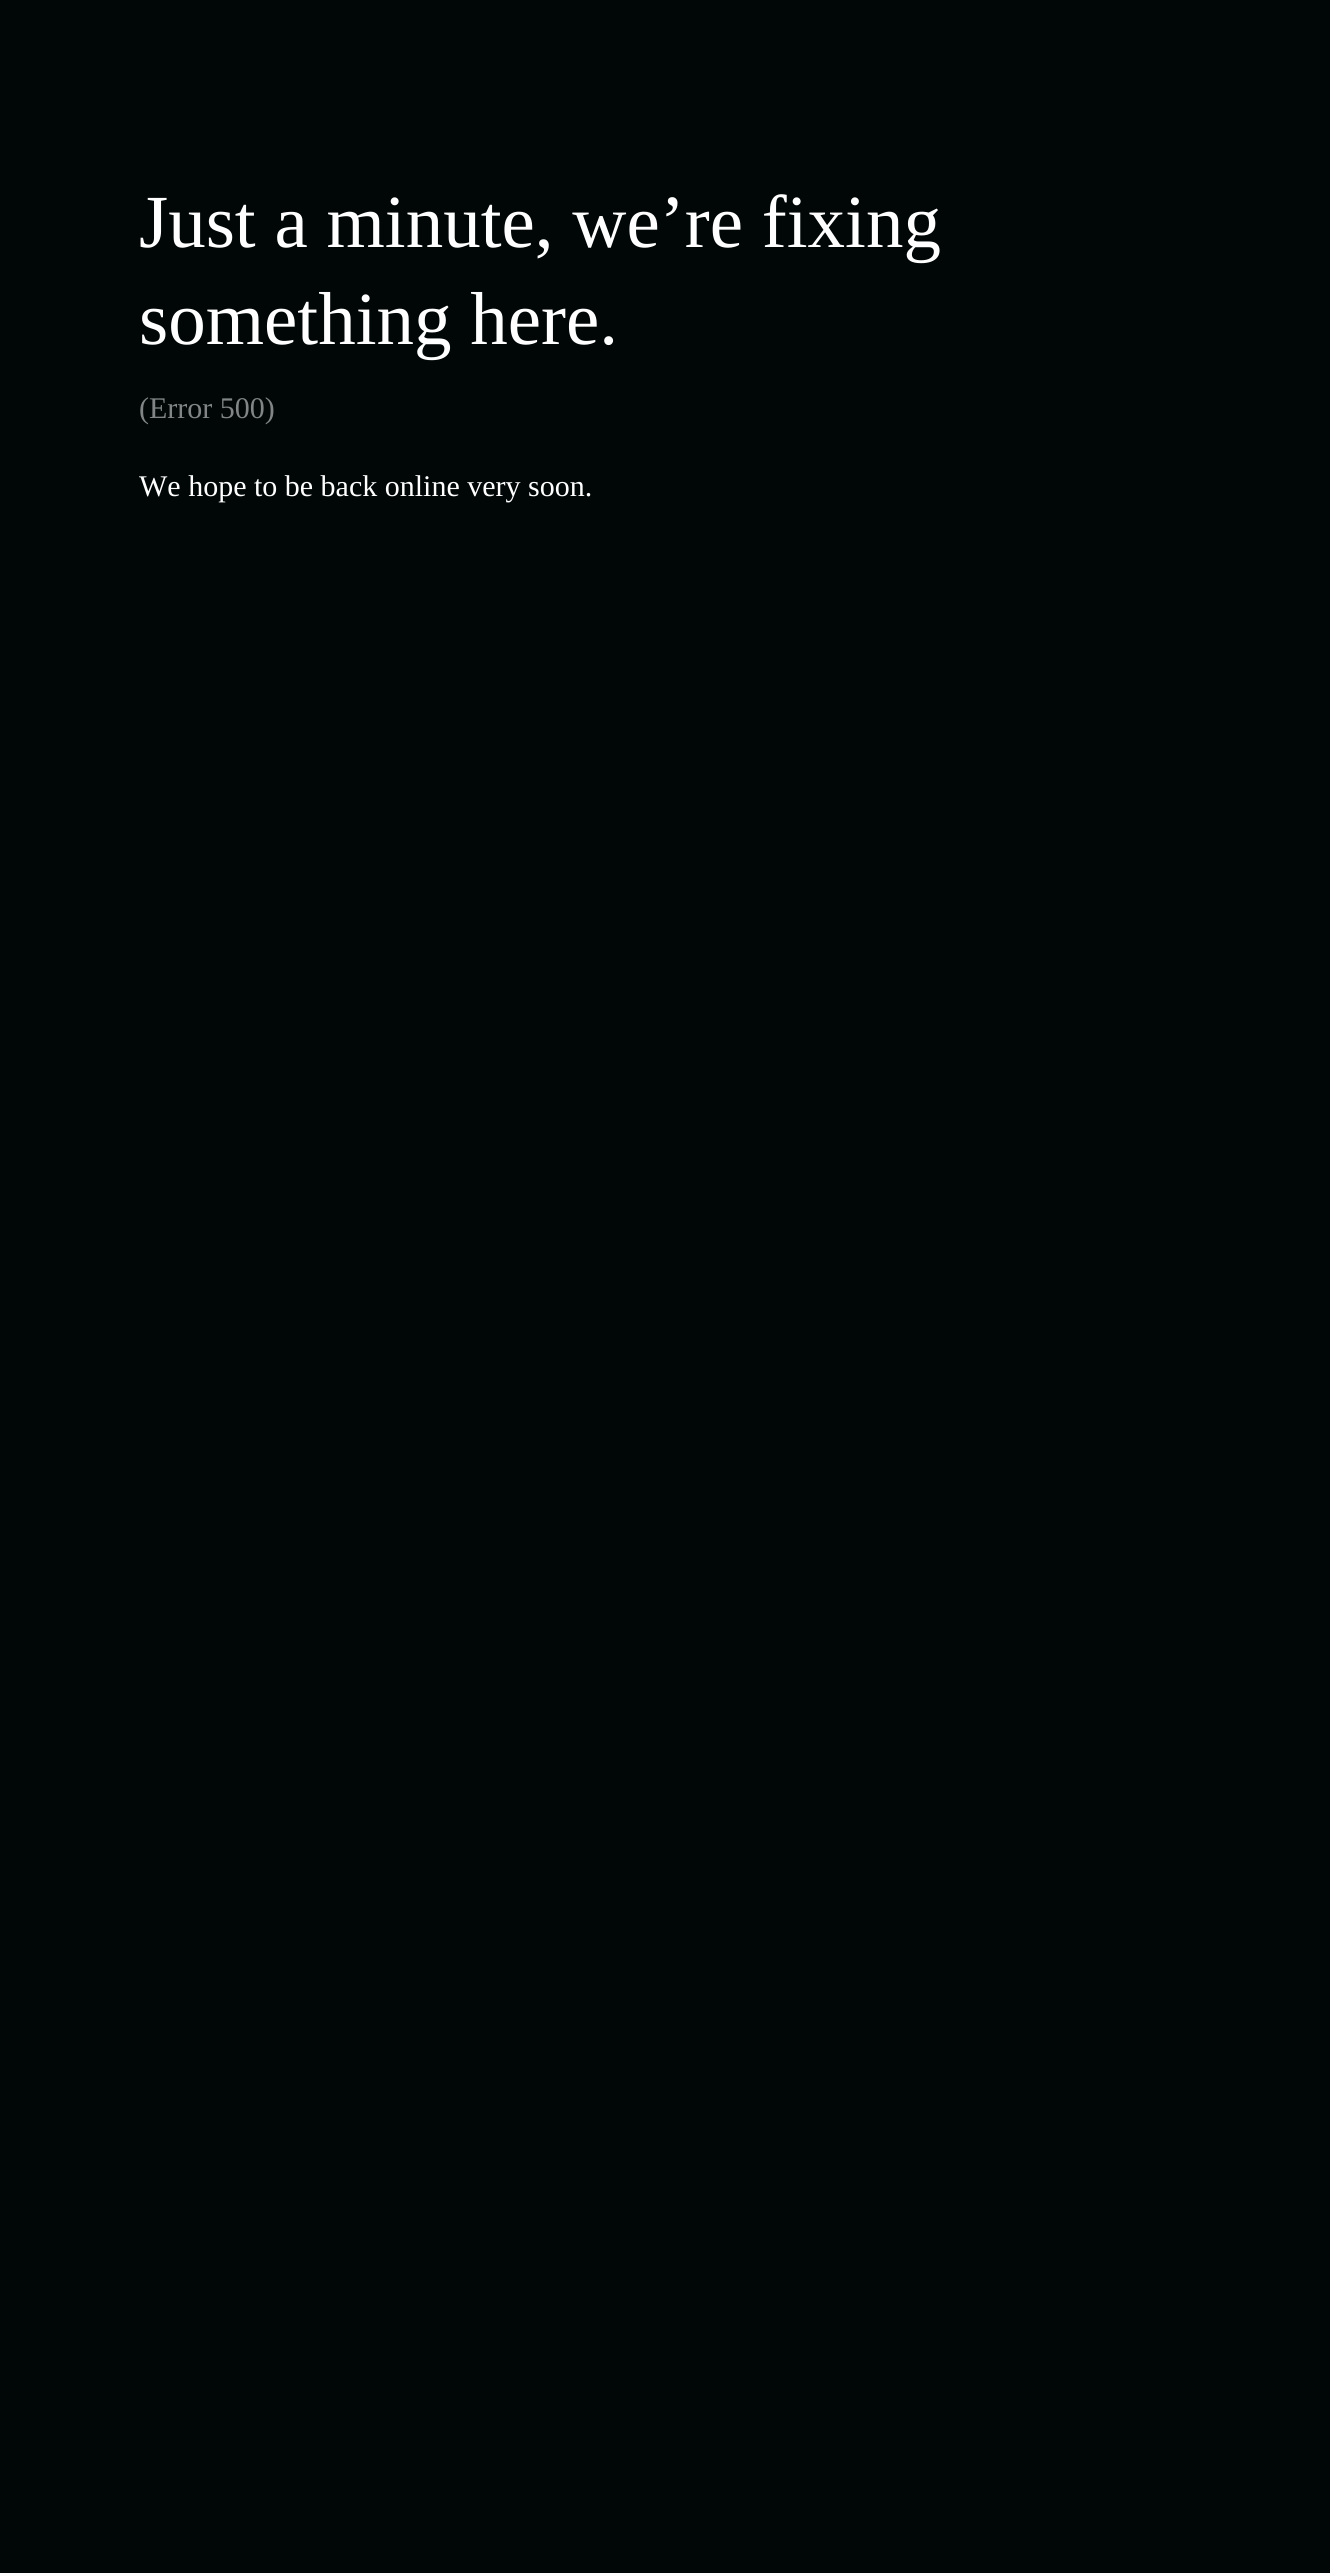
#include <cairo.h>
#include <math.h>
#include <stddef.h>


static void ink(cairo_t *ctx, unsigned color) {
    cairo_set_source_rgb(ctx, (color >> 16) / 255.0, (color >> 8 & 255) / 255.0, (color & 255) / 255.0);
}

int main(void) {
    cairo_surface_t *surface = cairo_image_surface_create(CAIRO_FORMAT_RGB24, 1330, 2573);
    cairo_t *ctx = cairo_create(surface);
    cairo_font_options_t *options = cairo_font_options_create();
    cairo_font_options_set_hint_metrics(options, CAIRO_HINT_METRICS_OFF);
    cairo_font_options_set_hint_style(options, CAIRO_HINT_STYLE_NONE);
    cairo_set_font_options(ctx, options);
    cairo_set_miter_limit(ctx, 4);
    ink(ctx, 0x010606);
    cairo_paint(ctx);
    cairo_select_font_face(ctx, "Liberation Serif", CAIRO_FONT_SLANT_NORMAL, CAIRO_FONT_WEIGHT_NORMAL);
    cairo_set_font_size(ctx, 75);
    ink(ctx, 0xFFFFFF);
    cairo_move_to(ctx, 139, 247);
    cairo_show_text(ctx, "Just a minute, we’re fixing");
    cairo_move_to(ctx, 139, 344);
    cairo_show_text(ctx, "something here.");
    cairo_set_font_size(ctx, 30);
    ink(ctx, 0x818586);
    cairo_move_to(ctx, 139, 418);
    cairo_show_text(ctx, "(Error 500)");
    ink(ctx, 0xFFFFFF);
    cairo_move_to(ctx, 139, 496);
    cairo_show_text(ctx, "We hope to be back online very soon.");
    cairo_surface_write_to_png(surface, "image.png");
    cairo_font_options_destroy(options);
    cairo_destroy(ctx);
    cairo_surface_destroy(surface);
    return 0;
}
